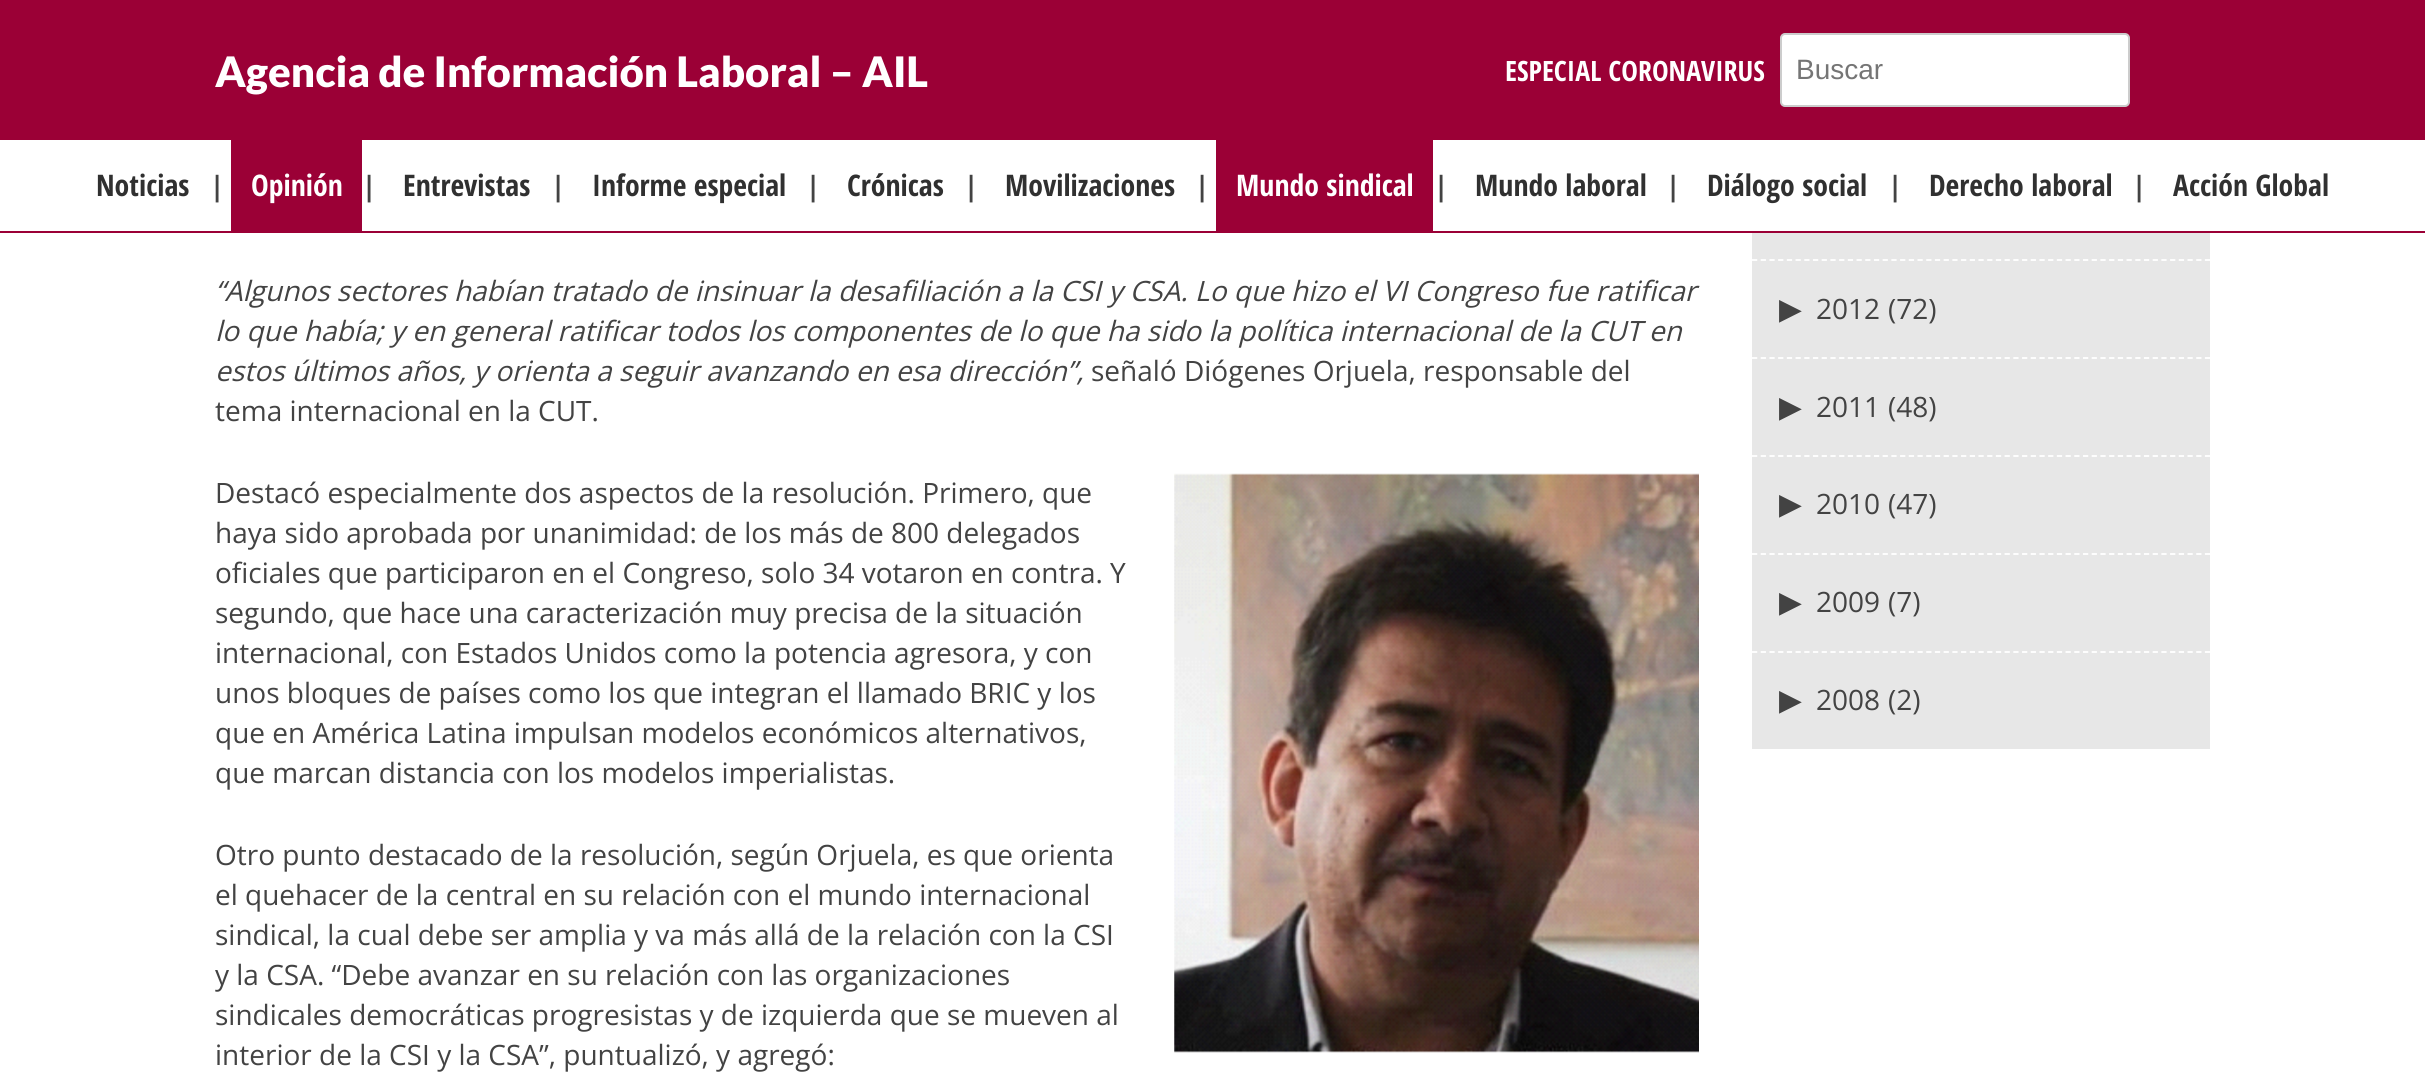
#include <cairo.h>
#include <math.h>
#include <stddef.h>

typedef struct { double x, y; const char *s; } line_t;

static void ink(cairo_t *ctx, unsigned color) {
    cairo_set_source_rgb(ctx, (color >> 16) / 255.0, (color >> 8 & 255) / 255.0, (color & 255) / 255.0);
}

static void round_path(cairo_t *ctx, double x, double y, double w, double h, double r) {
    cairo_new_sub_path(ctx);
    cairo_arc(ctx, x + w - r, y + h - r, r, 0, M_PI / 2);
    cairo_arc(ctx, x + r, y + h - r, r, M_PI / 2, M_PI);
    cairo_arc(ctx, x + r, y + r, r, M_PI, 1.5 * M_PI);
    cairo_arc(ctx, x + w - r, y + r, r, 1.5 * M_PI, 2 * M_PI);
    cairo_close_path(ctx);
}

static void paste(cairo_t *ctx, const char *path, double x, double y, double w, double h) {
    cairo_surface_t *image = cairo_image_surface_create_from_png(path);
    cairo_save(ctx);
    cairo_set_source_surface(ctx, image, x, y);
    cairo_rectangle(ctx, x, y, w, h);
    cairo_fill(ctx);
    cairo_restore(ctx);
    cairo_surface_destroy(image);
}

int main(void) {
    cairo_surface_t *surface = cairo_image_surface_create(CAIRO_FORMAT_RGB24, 2425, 1091);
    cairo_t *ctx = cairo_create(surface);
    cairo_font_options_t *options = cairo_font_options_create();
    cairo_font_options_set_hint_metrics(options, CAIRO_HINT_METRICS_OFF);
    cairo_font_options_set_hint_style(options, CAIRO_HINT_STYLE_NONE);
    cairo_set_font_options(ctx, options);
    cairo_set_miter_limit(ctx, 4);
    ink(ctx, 0xFFFFFF);
    cairo_paint(ctx);
    ink(ctx, 0x9B0036);
    cairo_rectangle(ctx, 0, 0, 2425, 140);
    cairo_fill(ctx);
    cairo_select_font_face(ctx, "Lato Black", CAIRO_FONT_SLANT_NORMAL, CAIRO_FONT_WEIGHT_NORMAL);
    cairo_set_font_size(ctx, 42);
    ink(ctx, 0xFFFFFF);
    cairo_move_to(ctx, 215, 87);
    cairo_show_text(ctx, "Agencia de Información Laboral – AIL");
    cairo_select_font_face(ctx, "Open Sans Condensed", CAIRO_FONT_SLANT_NORMAL, CAIRO_FONT_WEIGHT_BOLD);
    cairo_set_font_size(ctx, 28);
    cairo_move_to(ctx, 1505, 81);
    cairo_show_text(ctx, "ESPECIAL CORONAVIRUS");
    round_path(ctx, 1781, 34, 348, 72, 4);
    cairo_fill_preserve(ctx);
    ink(ctx, 0xCCCCCC);
    cairo_stroke(ctx);
    cairo_select_font_face(ctx, "Liberation Sans", CAIRO_FONT_SLANT_NORMAL, CAIRO_FONT_WEIGHT_NORMAL);
    ink(ctx, 0x757575);
    cairo_move_to(ctx, 1796, 79);
    cairo_show_text(ctx, "Buscar");
    ink(ctx, 0x9B0036);
    cairo_rectangle(ctx, 0, 231, 2425, 2);
    cairo_fill(ctx);
    cairo_select_font_face(ctx, "Open Sans Condensed", CAIRO_FONT_SLANT_NORMAL, CAIRO_FONT_WEIGHT_BOLD);
    cairo_set_font_size(ctx, 29.75);
    ink(ctx, 0x303030);
    cairo_move_to(ctx, 96, 196);
    cairo_show_text(ctx, "Noticias");
    cairo_set_font_size(ctx, 28);
    ink(ctx, 0x434343);
    cairo_move_to(ctx, 210, 196);
    cairo_show_text(ctx, "|");
    ink(ctx, 0x9B0036);
    cairo_rectangle(ctx, 231, 140, 131, 91);
    cairo_fill(ctx);
    cairo_set_font_size(ctx, 29.75);
    ink(ctx, 0xFFFFFF);
    cairo_move_to(ctx, 251, 196);
    cairo_show_text(ctx, "Opinión");
    cairo_set_font_size(ctx, 28);
    ink(ctx, 0x434343);
    cairo_move_to(ctx, 362, 196);
    cairo_show_text(ctx, "|");
    cairo_set_font_size(ctx, 29.75);
    ink(ctx, 0x303030);
    cairo_move_to(ctx, 403, 196);
    cairo_show_text(ctx, "Entrevistas");
    cairo_set_font_size(ctx, 28);
    ink(ctx, 0x434343);
    cairo_move_to(ctx, 551, 196);
    cairo_show_text(ctx, "|");
    cairo_set_font_size(ctx, 29.75);
    ink(ctx, 0x303030);
    cairo_move_to(ctx, 592, 196);
    cairo_show_text(ctx, "Informe especial");
    cairo_set_font_size(ctx, 28);
    ink(ctx, 0x434343);
    cairo_move_to(ctx, 806, 196);
    cairo_show_text(ctx, "|");
    cairo_set_font_size(ctx, 29.75);
    ink(ctx, 0x303030);
    cairo_move_to(ctx, 847, 196);
    cairo_show_text(ctx, "Crónicas");
    cairo_set_font_size(ctx, 28);
    ink(ctx, 0x434343);
    cairo_move_to(ctx, 964, 196);
    cairo_show_text(ctx, "|");
    cairo_set_font_size(ctx, 29.75);
    ink(ctx, 0x303030);
    cairo_move_to(ctx, 1005, 196);
    cairo_show_text(ctx, "Movilizaciones");
    cairo_set_font_size(ctx, 28);
    ink(ctx, 0x434343);
    cairo_move_to(ctx, 1195, 196);
    cairo_show_text(ctx, "|");
    ink(ctx, 0x9B0036);
    cairo_rectangle(ctx, 1216, 140, 217, 91);
    cairo_fill(ctx);
    cairo_set_font_size(ctx, 29.75);
    ink(ctx, 0xFFFFFF);
    cairo_move_to(ctx, 1236, 196);
    cairo_show_text(ctx, "Mundo sindical");
    cairo_set_font_size(ctx, 28);
    ink(ctx, 0x434343);
    cairo_move_to(ctx, 1434, 196);
    cairo_show_text(ctx, "|");
    cairo_set_font_size(ctx, 29.75);
    ink(ctx, 0x303030);
    cairo_move_to(ctx, 1475, 196);
    cairo_show_text(ctx, "Mundo laboral");
    cairo_set_font_size(ctx, 28);
    ink(ctx, 0x434343);
    cairo_move_to(ctx, 1666, 196);
    cairo_show_text(ctx, "|");
    cairo_set_font_size(ctx, 29.75);
    ink(ctx, 0x303030);
    cairo_move_to(ctx, 1707, 196);
    cairo_show_text(ctx, "Diálogo social");
    cairo_set_font_size(ctx, 28);
    ink(ctx, 0x434343);
    cairo_move_to(ctx, 1888, 196);
    cairo_show_text(ctx, "|");
    cairo_set_font_size(ctx, 29.75);
    ink(ctx, 0x303030);
    cairo_move_to(ctx, 1929, 196);
    cairo_show_text(ctx, "Derecho laboral");
    cairo_set_font_size(ctx, 28);
    ink(ctx, 0x434343);
    cairo_move_to(ctx, 2132, 196);
    cairo_show_text(ctx, "|");
    cairo_set_font_size(ctx, 29.75);
    ink(ctx, 0x303030);
    cairo_move_to(ctx, 2173, 196);
    cairo_show_text(ctx, "Acción Global");
    cairo_select_font_face(ctx, "Open Sans", CAIRO_FONT_SLANT_ITALIC, CAIRO_FONT_WEIGHT_NORMAL);
    cairo_set_font_size(ctx, 28);
    ink(ctx, 0x434343);
    {
        static const line_t items[] = {
            {215, 301, "“Algunos sectores habían tratado de insinuar la desafiliación a la CSI y CSA. Lo que hizo el VI Congreso fue ratificar"},
            {215, 341, "lo que había; y en general ratificar todos los componentes de lo que ha sido la política internacional de la CUT en"},
            {215, 381, "estos últimos años, y orienta a seguir avanzando en esa dirección”,"},
        };
        for (size_t i = 0; i < sizeof items / sizeof *items; i++) {
            cairo_move_to(ctx, items[i].x, items[i].y);
            cairo_show_text(ctx, items[i].s);
        }
    }
    cairo_select_font_face(ctx, "Open Sans", CAIRO_FONT_SLANT_NORMAL, CAIRO_FONT_WEIGHT_NORMAL);
    {
        static const line_t items[] = {
            {1091, 381, "señaló Diógenes Orjuela, responsable del"},
            {215, 421, "tema internacional en la CUT."},
            {215, 503, "Destacó especialmente dos aspectos de la resolución. Primero, que"},
            {215, 543, "haya sido aprobada por unanimidad: de los más de 800 delegados"},
            {215, 583, "oficiales que participaron en el Congreso, solo 34 votaron en contra. Y"},
            {215, 623, "segundo, que hace una caracterización muy precisa de la situación"},
            {215, 663, "internacional, con Estados Unidos como la potencia agresora, y con"},
            {215, 703, "unos bloques de países como los que integran el llamado BRIC y los"},
            {215, 743, "que en América Latina impulsan modelos económicos alternativos,"},
            {215, 783, "que marcan distancia con los modelos imperialistas."},
        };
        for (size_t i = 0; i < sizeof items / sizeof *items; i++) {
            cairo_move_to(ctx, items[i].x, items[i].y);
            cairo_show_text(ctx, items[i].s);
        }
    }
    paste(ctx, "media/1.png", 1174, 473, 525, 580);
    {
        static const line_t items[] = {
            {215, 865, "Otro punto destacado de la resolución, según Orjuela, es que orienta"},
            {215, 905, "el quehacer de la central en su relación con el mundo internacional"},
            {215, 945, "sindical, la cual debe ser amplia y va más allá de la relación con la CSI"},
            {215, 985, "y la CSA. “Debe avanzar en su relación con las organizaciones"},
            {215, 1025, "sindicales democráticas progresistas y de izquierda que se mueven al"},
            {215, 1065, "interior de la CSI y la CSA”, puntualizó, y agregó:"},
        };
        for (size_t i = 0; i < sizeof items / sizeof *items; i++) {
            cairo_move_to(ctx, items[i].x, items[i].y);
            cairo_show_text(ctx, items[i].s);
        }
    }
    ink(ctx, 0xE7E7E7);
    cairo_rectangle(ctx, 1752, 233, 458, 516);
    cairo_fill(ctx);
    cairo_new_path(ctx);
    cairo_move_to(ctx, 1752, 260);
    cairo_line_to(ctx, 2210, 260);
    ink(ctx, 0xFFFFFF);
    cairo_set_line_width(ctx, 1.8);
    cairo_set_dash(ctx, (double[]){5.25, 3.46}, 2, 0);
    cairo_stroke(ctx);
    cairo_new_path(ctx);
    cairo_move_to(ctx, 1752, 358);
    cairo_line_to(ctx, 2210, 358);
    cairo_stroke(ctx);
    cairo_select_font_face(ctx, "DejaVu Sans", CAIRO_FONT_SLANT_NORMAL, CAIRO_FONT_WEIGHT_BOLD);
    ink(ctx, 0x434343);
    cairo_move_to(ctx, 1779, 319);
    cairo_show_text(ctx, "▶");
    cairo_select_font_face(ctx, "Open Sans", CAIRO_FONT_SLANT_NORMAL, CAIRO_FONT_WEIGHT_NORMAL);
    cairo_move_to(ctx, 1816, 319);
    cairo_show_text(ctx, "2012");
    cairo_move_to(ctx, 1888, 319);
    cairo_show_text(ctx, "(72)");
    cairo_new_path(ctx);
    cairo_move_to(ctx, 1752, 456);
    cairo_line_to(ctx, 2210, 456);
    ink(ctx, 0xFFFFFF);
    cairo_stroke(ctx);
    cairo_select_font_face(ctx, "DejaVu Sans", CAIRO_FONT_SLANT_NORMAL, CAIRO_FONT_WEIGHT_BOLD);
    ink(ctx, 0x434343);
    cairo_move_to(ctx, 1779, 417);
    cairo_show_text(ctx, "▶");
    cairo_select_font_face(ctx, "Open Sans", CAIRO_FONT_SLANT_NORMAL, CAIRO_FONT_WEIGHT_NORMAL);
    cairo_move_to(ctx, 1816, 417);
    cairo_show_text(ctx, "2011");
    cairo_move_to(ctx, 1888, 417);
    cairo_show_text(ctx, "(48)");
    cairo_new_path(ctx);
    cairo_move_to(ctx, 1752, 554);
    cairo_line_to(ctx, 2210, 554);
    ink(ctx, 0xFFFFFF);
    cairo_stroke(ctx);
    cairo_select_font_face(ctx, "DejaVu Sans", CAIRO_FONT_SLANT_NORMAL, CAIRO_FONT_WEIGHT_BOLD);
    ink(ctx, 0x434343);
    cairo_move_to(ctx, 1779, 514);
    cairo_show_text(ctx, "▶");
    cairo_select_font_face(ctx, "Open Sans", CAIRO_FONT_SLANT_NORMAL, CAIRO_FONT_WEIGHT_NORMAL);
    cairo_move_to(ctx, 1816, 514);
    cairo_show_text(ctx, "2010");
    cairo_move_to(ctx, 1888, 514);
    cairo_show_text(ctx, "(47)");
    cairo_new_path(ctx);
    cairo_move_to(ctx, 1752, 652);
    cairo_line_to(ctx, 2210, 652);
    ink(ctx, 0xFFFFFF);
    cairo_stroke(ctx);
    cairo_select_font_face(ctx, "DejaVu Sans", CAIRO_FONT_SLANT_NORMAL, CAIRO_FONT_WEIGHT_BOLD);
    ink(ctx, 0x434343);
    cairo_move_to(ctx, 1779, 612);
    cairo_show_text(ctx, "▶");
    cairo_select_font_face(ctx, "Open Sans", CAIRO_FONT_SLANT_NORMAL, CAIRO_FONT_WEIGHT_NORMAL);
    cairo_move_to(ctx, 1816, 612);
    cairo_show_text(ctx, "2009");
    cairo_move_to(ctx, 1888, 612);
    cairo_show_text(ctx, "(7)");
    cairo_select_font_face(ctx, "DejaVu Sans", CAIRO_FONT_SLANT_NORMAL, CAIRO_FONT_WEIGHT_BOLD);
    cairo_move_to(ctx, 1779, 710);
    cairo_show_text(ctx, "▶");
    cairo_select_font_face(ctx, "Open Sans", CAIRO_FONT_SLANT_NORMAL, CAIRO_FONT_WEIGHT_NORMAL);
    cairo_move_to(ctx, 1816, 710);
    cairo_show_text(ctx, "2008");
    cairo_move_to(ctx, 1888, 710);
    cairo_show_text(ctx, "(2)");
    cairo_surface_write_to_png(surface, "image.png");
    cairo_font_options_destroy(options);
    cairo_destroy(ctx);
    cairo_surface_destroy(surface);
    return 0;
}
